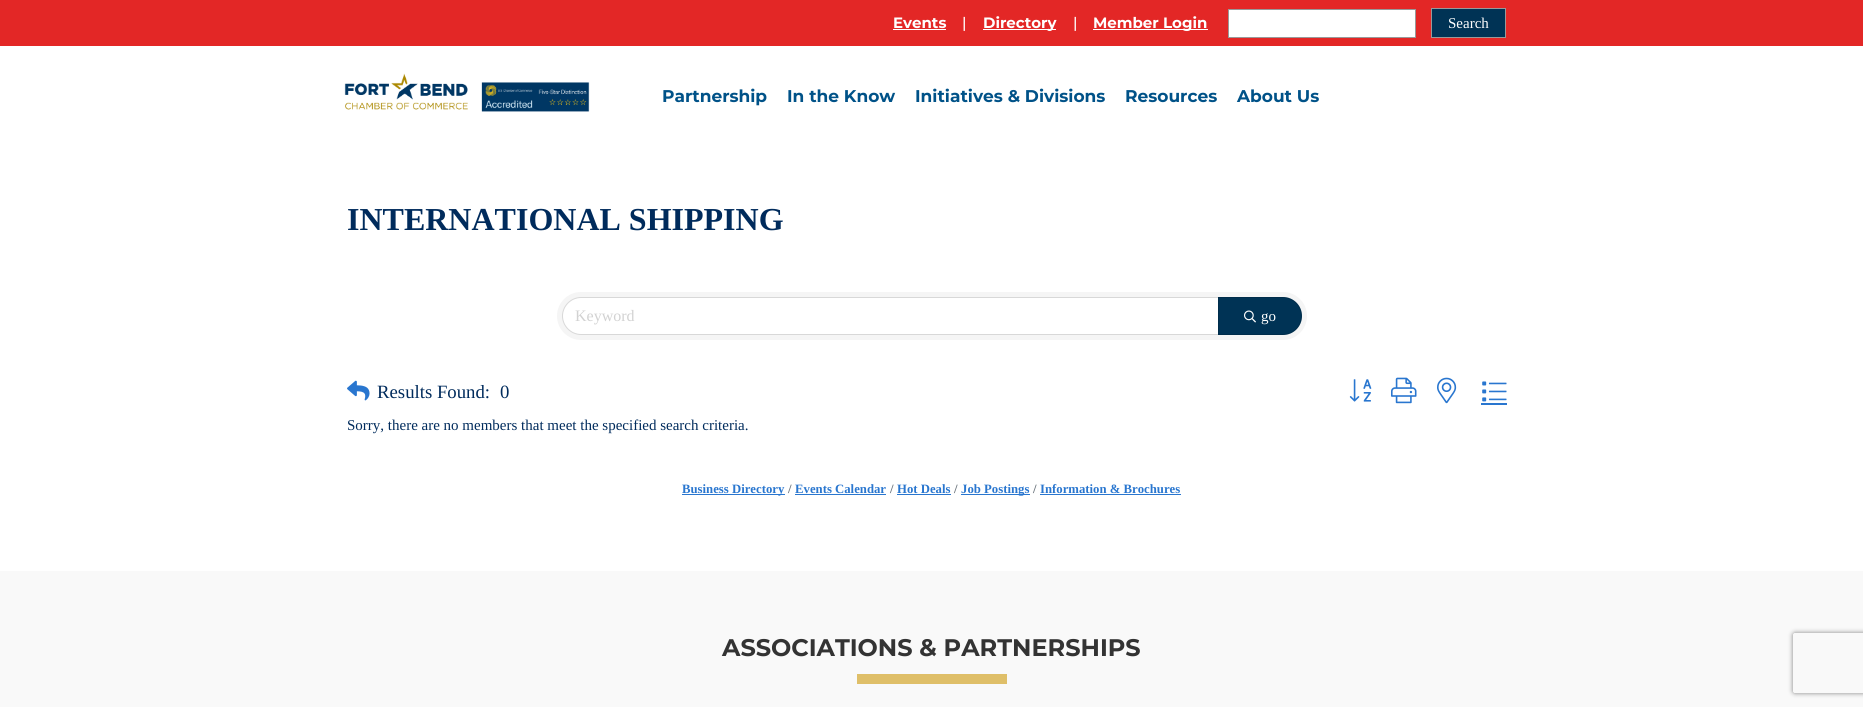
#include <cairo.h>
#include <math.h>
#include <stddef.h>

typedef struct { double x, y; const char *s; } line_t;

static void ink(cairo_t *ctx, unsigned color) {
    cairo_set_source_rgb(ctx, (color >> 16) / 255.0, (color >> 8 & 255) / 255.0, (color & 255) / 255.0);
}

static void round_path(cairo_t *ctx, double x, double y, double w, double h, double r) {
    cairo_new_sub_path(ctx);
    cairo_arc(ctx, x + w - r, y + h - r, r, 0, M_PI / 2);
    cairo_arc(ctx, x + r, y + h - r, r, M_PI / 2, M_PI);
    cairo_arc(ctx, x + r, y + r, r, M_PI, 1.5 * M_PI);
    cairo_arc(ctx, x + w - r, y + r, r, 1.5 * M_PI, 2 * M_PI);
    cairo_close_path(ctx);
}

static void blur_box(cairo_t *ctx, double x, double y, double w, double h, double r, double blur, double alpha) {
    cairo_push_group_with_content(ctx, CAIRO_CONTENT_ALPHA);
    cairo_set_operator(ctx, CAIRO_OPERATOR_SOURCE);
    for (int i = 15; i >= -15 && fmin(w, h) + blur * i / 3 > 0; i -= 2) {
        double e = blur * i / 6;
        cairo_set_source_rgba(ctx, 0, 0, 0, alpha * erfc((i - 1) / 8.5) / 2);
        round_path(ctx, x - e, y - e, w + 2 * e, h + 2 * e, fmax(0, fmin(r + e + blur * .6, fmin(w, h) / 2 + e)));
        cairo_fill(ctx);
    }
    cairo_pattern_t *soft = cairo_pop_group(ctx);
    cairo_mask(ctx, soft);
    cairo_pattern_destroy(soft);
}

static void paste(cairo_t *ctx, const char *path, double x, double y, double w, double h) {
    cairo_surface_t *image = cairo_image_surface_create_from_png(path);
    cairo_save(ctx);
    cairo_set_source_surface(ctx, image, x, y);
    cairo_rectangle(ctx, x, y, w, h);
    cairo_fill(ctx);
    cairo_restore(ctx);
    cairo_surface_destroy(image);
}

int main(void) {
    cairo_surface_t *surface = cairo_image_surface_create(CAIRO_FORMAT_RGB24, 1863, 707);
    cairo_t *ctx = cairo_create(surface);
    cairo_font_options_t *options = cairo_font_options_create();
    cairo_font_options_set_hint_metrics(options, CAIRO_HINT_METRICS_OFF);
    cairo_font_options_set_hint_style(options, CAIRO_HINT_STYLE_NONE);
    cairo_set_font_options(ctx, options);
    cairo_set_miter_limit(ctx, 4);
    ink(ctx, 0xFFFFFF);
    cairo_paint(ctx);
    ink(ctx, 0xE32726);
    cairo_rectangle(ctx, 0, 0, 1863, 46);
    cairo_fill(ctx);
    cairo_select_font_face(ctx, "Montserrat", CAIRO_FONT_SLANT_NORMAL, CAIRO_FONT_WEIGHT_BOLD);
    cairo_set_font_size(ctx, 15);
    ink(ctx, 0xFFFFFF);
    cairo_move_to(ctx, 893, 28);
    cairo_show_text(ctx, "Events");
    cairo_rectangle(ctx, 893, 29, 53, 1);
    cairo_fill(ctx);
    cairo_select_font_face(ctx, "Montserrat Medium", CAIRO_FONT_SLANT_NORMAL, CAIRO_FONT_WEIGHT_NORMAL);
    cairo_move_to(ctx, 962, 28);
    cairo_show_text(ctx, "|");
    cairo_rectangle(ctx, 983, 29, 73, 1);
    cairo_fill(ctx);
    cairo_select_font_face(ctx, "Montserrat", CAIRO_FONT_SLANT_NORMAL, CAIRO_FONT_WEIGHT_BOLD);
    cairo_move_to(ctx, 983, 28);
    cairo_show_text(ctx, "Directory");
    cairo_select_font_face(ctx, "Montserrat Medium", CAIRO_FONT_SLANT_NORMAL, CAIRO_FONT_WEIGHT_NORMAL);
    cairo_move_to(ctx, 1073, 28);
    cairo_show_text(ctx, "|");
    cairo_rectangle(ctx, 1093, 29, 115, 1);
    cairo_fill(ctx);
    cairo_select_font_face(ctx, "Montserrat", CAIRO_FONT_SLANT_NORMAL, CAIRO_FONT_WEIGHT_BOLD);
    cairo_move_to(ctx, 1093, 28);
    cairo_show_text(ctx, "Member Login");
    cairo_rectangle(ctx, 1228.5, 9.5, 187, 28);
    cairo_fill_preserve(ctx);
    ink(ctx, 0x999999);
    cairo_set_line_width(ctx, 1);
    cairo_stroke(ctx);
    ink(ctx, 0x003355);
    cairo_rectangle(ctx, 1431.5, 8.5, 74, 29);
    cairo_fill_preserve(ctx);
    ink(ctx, 0x999999);
    cairo_stroke(ctx);
    cairo_select_font_face(ctx, "Liberation Serif", CAIRO_FONT_SLANT_NORMAL, CAIRO_FONT_WEIGHT_NORMAL);
    ink(ctx, 0xFFFFFF);
    cairo_move_to(ctx, 1448, 28);
    cairo_show_text(ctx, "Search");
    paste(ctx, "media/1.png", 344, 73, 246, 39);
    cairo_select_font_face(ctx, "Montserrat", CAIRO_FONT_SLANT_NORMAL, CAIRO_FONT_WEIGHT_BOLD);
    cairo_set_font_size(ctx, 17);
    ink(ctx, 0x005288);
    {
        static const line_t items[] = {
            {662, 102, "Partnership"},
            {787, 102, "In the Know"},
            {915, 102, "Initiatives & Divisions"},
            {1125, 102, "Resources"},
            {1237, 102, "About Us"},
        };
        for (size_t i = 0; i < sizeof items / sizeof *items; i++) {
            cairo_move_to(ctx, items[i].x, items[i].y);
            cairo_show_text(ctx, items[i].s);
        }
    }
    cairo_select_font_face(ctx, "Liberation Serif", CAIRO_FONT_SLANT_NORMAL, CAIRO_FONT_WEIGHT_BOLD);
    cairo_set_font_size(ctx, 32);
    ink(ctx, 0x002B5C);
    cairo_move_to(ctx, 347, 230);
    cairo_show_text(ctx, "INTERNATIONAL SHIPPING");
    ink(ctx, 0xF5F5F5);
    round_path(ctx, 557, 292, 750, 48, 24);
    cairo_fill(ctx);
    ink(ctx, 0xFFFFFF);
    cairo_new_path(ctx);
    cairo_move_to(ctx, 581, 298);
    cairo_line_to(ctx, 1218, 298);
    cairo_line_to(ctx, 1218, 334);
    cairo_line_to(ctx, 581, 334);
    cairo_curve_to(ctx, 571, 334, 563, 326, 563, 316);
    cairo_curve_to(ctx, 563, 306, 571, 298, 581, 298);
    cairo_close_path(ctx);
    cairo_fill(ctx);
    cairo_new_path(ctx);
    cairo_move_to(ctx, 581, 297.5);
    cairo_line_to(ctx, 1218.5, 297.5);
    cairo_line_to(ctx, 1218.5, 334.5);
    cairo_line_to(ctx, 581, 334.5);
    cairo_curve_to(ctx, 571, 334.5, 562.5, 326, 562.5, 316);
    cairo_curve_to(ctx, 562.5, 306, 571, 297.5, 581, 297.5);
    cairo_close_path(ctx);
    cairo_set_source_rgba(ctx, 0, 0, 0, 0.12);
    cairo_stroke(ctx);
    cairo_select_font_face(ctx, "Liberation Serif", CAIRO_FONT_SLANT_NORMAL, CAIRO_FONT_WEIGHT_NORMAL);
    cairo_set_font_size(ctx, 16);
    ink(ctx, 0xD2D2D2);
    cairo_move_to(ctx, 575, 321);
    cairo_show_text(ctx, "Keyword");
    ink(ctx, 0x003355);
    cairo_new_path(ctx);
    cairo_move_to(ctx, 1218, 297);
    cairo_line_to(ctx, 1283, 297);
    cairo_curve_to(ctx, 1293.5, 297, 1302, 305.5, 1302, 316);
    cairo_curve_to(ctx, 1302, 326.5, 1293.5, 335, 1283, 335);
    cairo_line_to(ctx, 1218, 335);
    cairo_close_path(ctx);
    cairo_fill(ctx);
    cairo_new_path(ctx);
    cairo_move_to(ctx, 1218.5, 297.5);
    cairo_line_to(ctx, 1283, 297.5);
    cairo_curve_to(ctx, 1293, 297.5, 1301.5, 306, 1301.5, 316);
    cairo_curve_to(ctx, 1301.5, 326, 1293, 334.5, 1283, 334.5);
    cairo_line_to(ctx, 1218.5, 334.5);
    cairo_close_path(ctx);
    cairo_set_source_rgba(ctx, 0, 0, 0, 0.12);
    cairo_stroke(ctx);
    paste(ctx, "media/2.png", 1244, 310, 12, 13);
    cairo_set_font_size(ctx, 15);
    ink(ctx, 0xFFFFFF);
    cairo_move_to(ctx, 1261, 321);
    cairo_show_text(ctx, "go");
    paste(ctx, "media/3.png", 347, 380, 23, 21);
    cairo_set_font_size(ctx, 18.75);
    ink(ctx, 0x002B5C);
    cairo_move_to(ctx, 377, 398);
    cairo_show_text(ctx, "Results Found:");
    cairo_move_to(ctx, 500, 398);
    cairo_show_text(ctx, "0");
    paste(ctx, "media/4.png", 1349, 379, 23, 23);
    paste(ctx, "media/5.png", 1391, 377, 26, 27);
    paste(ctx, "media/6.png", 1437, 377, 20, 27);
    paste(ctx, "media/7.png", 1482, 381, 25, 21);
    ink(ctx, 0x2976CF);
    cairo_rectangle(ctx, 1481, 403, 26, 2);
    cairo_fill(ctx);
    cairo_set_font_size(ctx, 15);
    ink(ctx, 0x002B5C);
    cairo_move_to(ctx, 347, 430);
    cairo_show_text(ctx, "Sorry, there are no members that meet the specified search criteria.");
    ink(ctx, 0x2976CF);
    cairo_rectangle(ctx, 682, 494, 103, 1);
    cairo_fill(ctx);
    cairo_select_font_face(ctx, "Liberation Serif", CAIRO_FONT_SLANT_NORMAL, CAIRO_FONT_WEIGHT_BOLD);
    cairo_set_font_size(ctx, 12.75);
    cairo_move_to(ctx, 682, 493);
    cairo_show_text(ctx, "Business Directory");
    ink(ctx, 0x6C757D);
    cairo_move_to(ctx, 788, 493);
    cairo_show_text(ctx, "/");
    ink(ctx, 0x2976CF);
    cairo_move_to(ctx, 795, 493);
    cairo_show_text(ctx, "Events Calendar");
    cairo_rectangle(ctx, 795, 494, 91, 1);
    cairo_fill(ctx);
    ink(ctx, 0x6C757D);
    cairo_move_to(ctx, 890, 493);
    cairo_show_text(ctx, "/");
    ink(ctx, 0x2976CF);
    cairo_move_to(ctx, 897, 493);
    cairo_show_text(ctx, "Hot Deals");
    cairo_rectangle(ctx, 897, 494, 54, 1);
    cairo_fill(ctx);
    ink(ctx, 0x6C757D);
    cairo_move_to(ctx, 954, 493);
    cairo_show_text(ctx, "/");
    ink(ctx, 0x2976CF);
    cairo_rectangle(ctx, 961, 494, 69, 1);
    cairo_fill(ctx);
    cairo_move_to(ctx, 961, 493);
    cairo_show_text(ctx, "Job Postings");
    ink(ctx, 0x6C757D);
    cairo_move_to(ctx, 1033, 493);
    cairo_show_text(ctx, "/");
    ink(ctx, 0x2976CF);
    cairo_move_to(ctx, 1040, 493);
    cairo_show_text(ctx, "Information & Brochures");
    cairo_rectangle(ctx, 1040, 494, 141, 1);
    cairo_fill(ctx);
    ink(ctx, 0xF9F9F9);
    cairo_rectangle(ctx, 0, 571, 1863, 136);
    cairo_fill(ctx);
    cairo_select_font_face(ctx, "Montserrat", CAIRO_FONT_SLANT_NORMAL, CAIRO_FONT_WEIGHT_BOLD);
    cairo_set_font_size(ctx, 24);
    ink(ctx, 0x333333);
    cairo_move_to(ctx, 722, 656);
    cairo_show_text(ctx, "ASSOCIATIONS & PARTNERSHIPS");
    ink(ctx, 0xDFBF69);
    cairo_rectangle(ctx, 857, 674, 150, 10);
    cairo_fill(ctx);
    cairo_save(ctx);
    cairo_set_fill_rule(ctx, CAIRO_FILL_RULE_EVEN_ODD);
    cairo_new_path(ctx);
    cairo_move_to(ctx, 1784, 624);
    cairo_line_to(ctx, 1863, 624);
    cairo_line_to(ctx, 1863, 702);
    cairo_line_to(ctx, 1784, 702);
    cairo_close_path(ctx);
    cairo_move_to(ctx, 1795, 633);
    cairo_line_to(ctx, 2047, 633);
    cairo_curve_to(ctx, 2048, 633, 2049, 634, 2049, 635);
    cairo_line_to(ctx, 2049, 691);
    cairo_curve_to(ctx, 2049, 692, 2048, 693, 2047, 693);
    cairo_line_to(ctx, 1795, 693);
    cairo_curve_to(ctx, 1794, 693, 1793, 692, 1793, 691);
    cairo_line_to(ctx, 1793, 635);
    cairo_curve_to(ctx, 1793, 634, 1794, 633, 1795, 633);
    cairo_close_path(ctx);
    cairo_clip(ctx);
    ink(ctx, 0x808080);
    blur_box(ctx, 1793, 633, 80, 60, 2, 2.5, 1);
    cairo_restore(ctx);
    cairo_surface_write_to_png(surface, "image.png");
    cairo_font_options_destroy(options);
    cairo_destroy(ctx);
    cairo_surface_destroy(surface);
    return 0;
}
